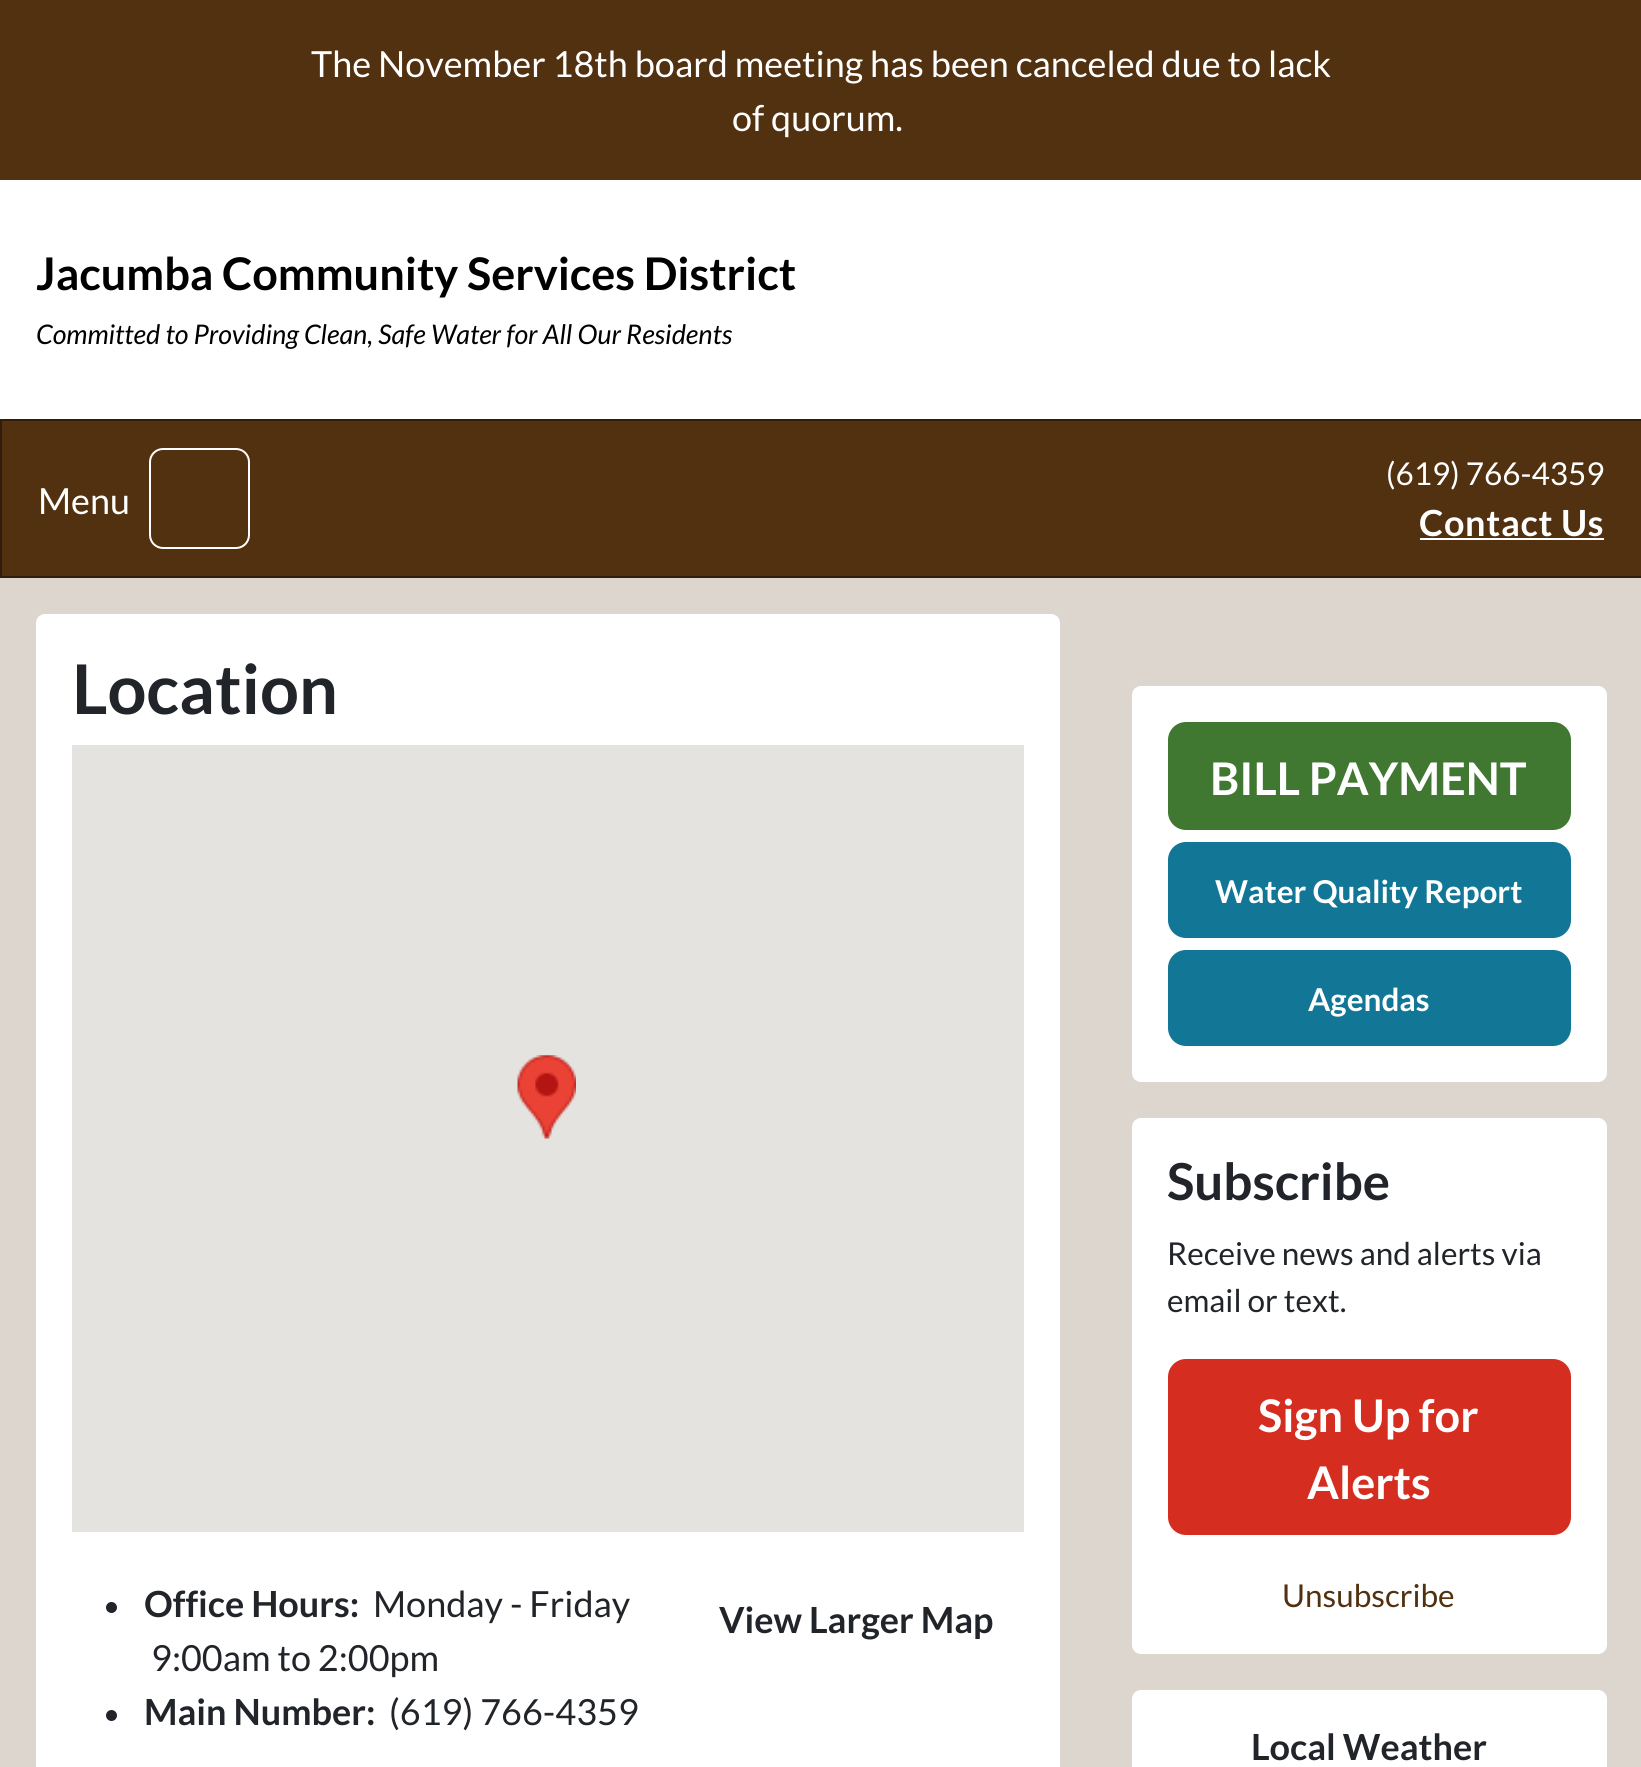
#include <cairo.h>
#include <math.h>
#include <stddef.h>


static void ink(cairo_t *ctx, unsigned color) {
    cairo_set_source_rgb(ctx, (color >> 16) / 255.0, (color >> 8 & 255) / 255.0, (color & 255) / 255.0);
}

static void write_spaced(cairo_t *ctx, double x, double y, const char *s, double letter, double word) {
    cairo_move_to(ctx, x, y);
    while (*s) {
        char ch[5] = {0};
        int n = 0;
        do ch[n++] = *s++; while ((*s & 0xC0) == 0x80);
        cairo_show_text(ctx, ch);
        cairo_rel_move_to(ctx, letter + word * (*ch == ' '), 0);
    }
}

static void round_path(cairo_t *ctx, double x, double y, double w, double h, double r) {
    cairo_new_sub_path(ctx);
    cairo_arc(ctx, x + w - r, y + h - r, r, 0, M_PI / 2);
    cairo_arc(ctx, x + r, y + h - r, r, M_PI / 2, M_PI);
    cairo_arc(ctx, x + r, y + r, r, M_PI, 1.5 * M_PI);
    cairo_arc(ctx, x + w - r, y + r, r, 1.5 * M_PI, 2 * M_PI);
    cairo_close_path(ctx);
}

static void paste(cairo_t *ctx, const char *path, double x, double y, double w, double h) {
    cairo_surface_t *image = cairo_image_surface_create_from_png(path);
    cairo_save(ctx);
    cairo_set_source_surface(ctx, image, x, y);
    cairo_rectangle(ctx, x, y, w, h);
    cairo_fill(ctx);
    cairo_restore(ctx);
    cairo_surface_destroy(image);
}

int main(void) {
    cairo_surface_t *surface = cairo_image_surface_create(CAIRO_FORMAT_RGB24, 1641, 1767);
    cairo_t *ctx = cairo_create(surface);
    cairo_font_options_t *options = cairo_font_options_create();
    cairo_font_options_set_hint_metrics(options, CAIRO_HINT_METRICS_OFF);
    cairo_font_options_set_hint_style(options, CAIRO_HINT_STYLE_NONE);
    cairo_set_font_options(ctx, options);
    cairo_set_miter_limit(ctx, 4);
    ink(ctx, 0xDCD6CF);
    cairo_paint(ctx);
    ink(ctx, 0x523110);
    cairo_rectangle(ctx, 0, 0, 1641, 180);
    cairo_fill(ctx);
    cairo_select_font_face(ctx, "Lato", CAIRO_FONT_SLANT_NORMAL, CAIRO_FONT_WEIGHT_NORMAL);
    cairo_set_font_size(ctx, 36);
    ink(ctx, 0xFFFFFF);
    cairo_move_to(ctx, 311, 77);
    cairo_show_text(ctx, "The November 18th board meeting has been canceled due to lack");
    cairo_move_to(ctx, 732, 131);
    cairo_show_text(ctx, "of quorum.");
    cairo_rectangle(ctx, 0, 180, 1641, 239);
    cairo_fill(ctx);
    cairo_select_font_face(ctx, "Lato", CAIRO_FONT_SLANT_NORMAL, CAIRO_FONT_WEIGHT_BOLD);
    cairo_set_font_size(ctx, 45);
    ink(ctx, 0x000000);
    cairo_move_to(ctx, 36, 290);
    cairo_show_text(ctx, "Jacumba Community Services District");
    cairo_select_font_face(ctx, "Lato", CAIRO_FONT_SLANT_ITALIC, CAIRO_FONT_WEIGHT_NORMAL);
    cairo_set_font_size(ctx, 27);
    cairo_move_to(ctx, 36, 344);
    cairo_show_text(ctx, "Committed to Providing Clean, Safe Water for All Our Residents");
    ink(ctx, 0x523110);
    cairo_rectangle(ctx, 1, 420, 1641, 157);
    cairo_fill_preserve(ctx);
    ink(ctx, 0x311D0A);
    cairo_stroke(ctx);
    cairo_select_font_face(ctx, "Lato", CAIRO_FONT_SLANT_NORMAL, CAIRO_FONT_WEIGHT_NORMAL);
    cairo_set_font_size(ctx, 36);
    ink(ctx, 0xFFFFFF);
    cairo_move_to(ctx, 38, 514);
    cairo_show_text(ctx, "Menu");
    round_path(ctx, 150, 449, 99, 99, 13);
    cairo_stroke(ctx);
    cairo_set_font_size(ctx, 31.5);
    cairo_move_to(ctx, 1386, 485);
    cairo_show_text(ctx, "(619) 766-4359");
    cairo_select_font_face(ctx, "Lato", CAIRO_FONT_SLANT_NORMAL, CAIRO_FONT_WEIGHT_BOLD);
    cairo_set_font_size(ctx, 36);
    write_spaced(ctx, 1419, 536, "Contact Us", 0.75, 0);
    cairo_rectangle(ctx, 1420, 538, 184, 2);
    cairo_fill(ctx);
    round_path(ctx, 36, 614, 1024, 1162, 9);
    cairo_fill(ctx);
    cairo_set_font_size(ctx, 68.5);
    ink(ctx, 0x212529);
    cairo_move_to(ctx, 72, 714);
    cairo_show_text(ctx, "Location");
    cairo_new_path(ctx);
    cairo_arc(ctx, 111.5, 1607.5, 5.5, 0, 2 * M_PI);
    cairo_fill(ctx);
    cairo_set_font_size(ctx, 36);
    cairo_move_to(ctx, 144, 1617);
    cairo_show_text(ctx, "Office Hours:");
    cairo_select_font_face(ctx, "Lato", CAIRO_FONT_SLANT_NORMAL, CAIRO_FONT_WEIGHT_NORMAL);
    cairo_move_to(ctx, 373, 1617);
    cairo_show_text(ctx, "Monday - Friday");
    cairo_move_to(ctx, 151, 1671);
    cairo_show_text(ctx, "9:00am to 2:00pm");
    cairo_new_path(ctx);
    cairo_arc(ctx, 111.5, 1715.5, 5.5, 0, 2 * M_PI);
    cairo_fill(ctx);
    cairo_select_font_face(ctx, "Lato", CAIRO_FONT_SLANT_NORMAL, CAIRO_FONT_WEIGHT_BOLD);
    cairo_move_to(ctx, 144, 1725);
    cairo_show_text(ctx, "Main Number:");
    cairo_select_font_face(ctx, "Lato", CAIRO_FONT_SLANT_NORMAL, CAIRO_FONT_WEIGHT_NORMAL);
    cairo_move_to(ctx, 389, 1725);
    cairo_show_text(ctx, "(619) 766-4359");
    ink(ctx, 0xE5E3DF);
    cairo_rectangle(ctx, 72, 745, 952, 787);
    cairo_fill(ctx);
    paste(ctx, "media/1.png", 517, 1055, 59, 84);
    cairo_select_font_face(ctx, "Lato", CAIRO_FONT_SLANT_NORMAL, CAIRO_FONT_WEIGHT_BOLD);
    ink(ctx, 0x212529);
    cairo_move_to(ctx, 719, 1633);
    cairo_show_text(ctx, "View Larger Map");
    ink(ctx, 0xFFFFFF);
    round_path(ctx, 1132, 686, 475, 396, 9);
    cairo_fill(ctx);
    ink(ctx, 0x417831);
    round_path(ctx, 1169, 723, 401, 106, 17);
    cairo_fill_preserve(ctx);
    cairo_stroke(ctx);
    cairo_set_font_size(ctx, 45);
    ink(ctx, 0xFFFFFF);
    cairo_move_to(ctx, 1210, 795);
    cairo_show_text(ctx, "BILL PAYMENT");
    ink(ctx, 0x127696);
    round_path(ctx, 1169, 843, 401, 94, 17);
    cairo_fill_preserve(ctx);
    cairo_stroke(ctx);
    cairo_set_font_size(ctx, 31.5);
    ink(ctx, 0xFFFFFF);
    cairo_move_to(ctx, 1215, 903);
    cairo_show_text(ctx, "Water Quality Report");
    ink(ctx, 0x127696);
    round_path(ctx, 1169, 951, 401, 94, 17);
    cairo_fill_preserve(ctx);
    cairo_stroke(ctx);
    ink(ctx, 0xFFFFFF);
    cairo_move_to(ctx, 1308, 1011);
    cairo_show_text(ctx, "Agendas");
    round_path(ctx, 1132, 1118, 475, 536, 9);
    cairo_fill(ctx);
    cairo_set_font_size(ctx, 51);
    ink(ctx, 0x212529);
    cairo_move_to(ctx, 1167, 1200);
    cairo_show_text(ctx, "Subscribe");
    cairo_select_font_face(ctx, "Lato", CAIRO_FONT_SLANT_NORMAL, CAIRO_FONT_WEIGHT_NORMAL);
    cairo_set_font_size(ctx, 31.5);
    cairo_move_to(ctx, 1167, 1265);
    cairo_show_text(ctx, "Receive news and alerts via");
    cairo_move_to(ctx, 1167, 1312);
    cairo_show_text(ctx, "email or text.");
    ink(ctx, 0xD52E20);
    round_path(ctx, 1169, 1360, 401, 174, 17);
    cairo_fill_preserve(ctx);
    cairo_stroke(ctx);
    cairo_select_font_face(ctx, "Lato", CAIRO_FONT_SLANT_NORMAL, CAIRO_FONT_WEIGHT_BOLD);
    cairo_set_font_size(ctx, 45);
    ink(ctx, 0xFFFFFF);
    cairo_move_to(ctx, 1258, 1432);
    cairo_show_text(ctx, "Sign Up for");
    cairo_move_to(ctx, 1307, 1499);
    cairo_show_text(ctx, "Alerts");
    cairo_select_font_face(ctx, "Lato", CAIRO_FONT_SLANT_NORMAL, CAIRO_FONT_WEIGHT_NORMAL);
    cairo_set_font_size(ctx, 31.5);
    ink(ctx, 0x523110);
    cairo_move_to(ctx, 1282, 1607);
    cairo_show_text(ctx, "Unsubscribe");
    ink(ctx, 0xFFFFFF);
    round_path(ctx, 1132, 1690, 475, 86, 9);
    cairo_fill(ctx);
    cairo_select_font_face(ctx, "Lato", CAIRO_FONT_SLANT_NORMAL, CAIRO_FONT_WEIGHT_BOLD);
    cairo_set_font_size(ctx, 36);
    ink(ctx, 0x212529);
    cairo_move_to(ctx, 1251, 1760);
    cairo_show_text(ctx, "Local Weather");
    cairo_surface_write_to_png(surface, "image.png");
    cairo_font_options_destroy(options);
    cairo_destroy(ctx);
    cairo_surface_destroy(surface);
    return 0;
}
